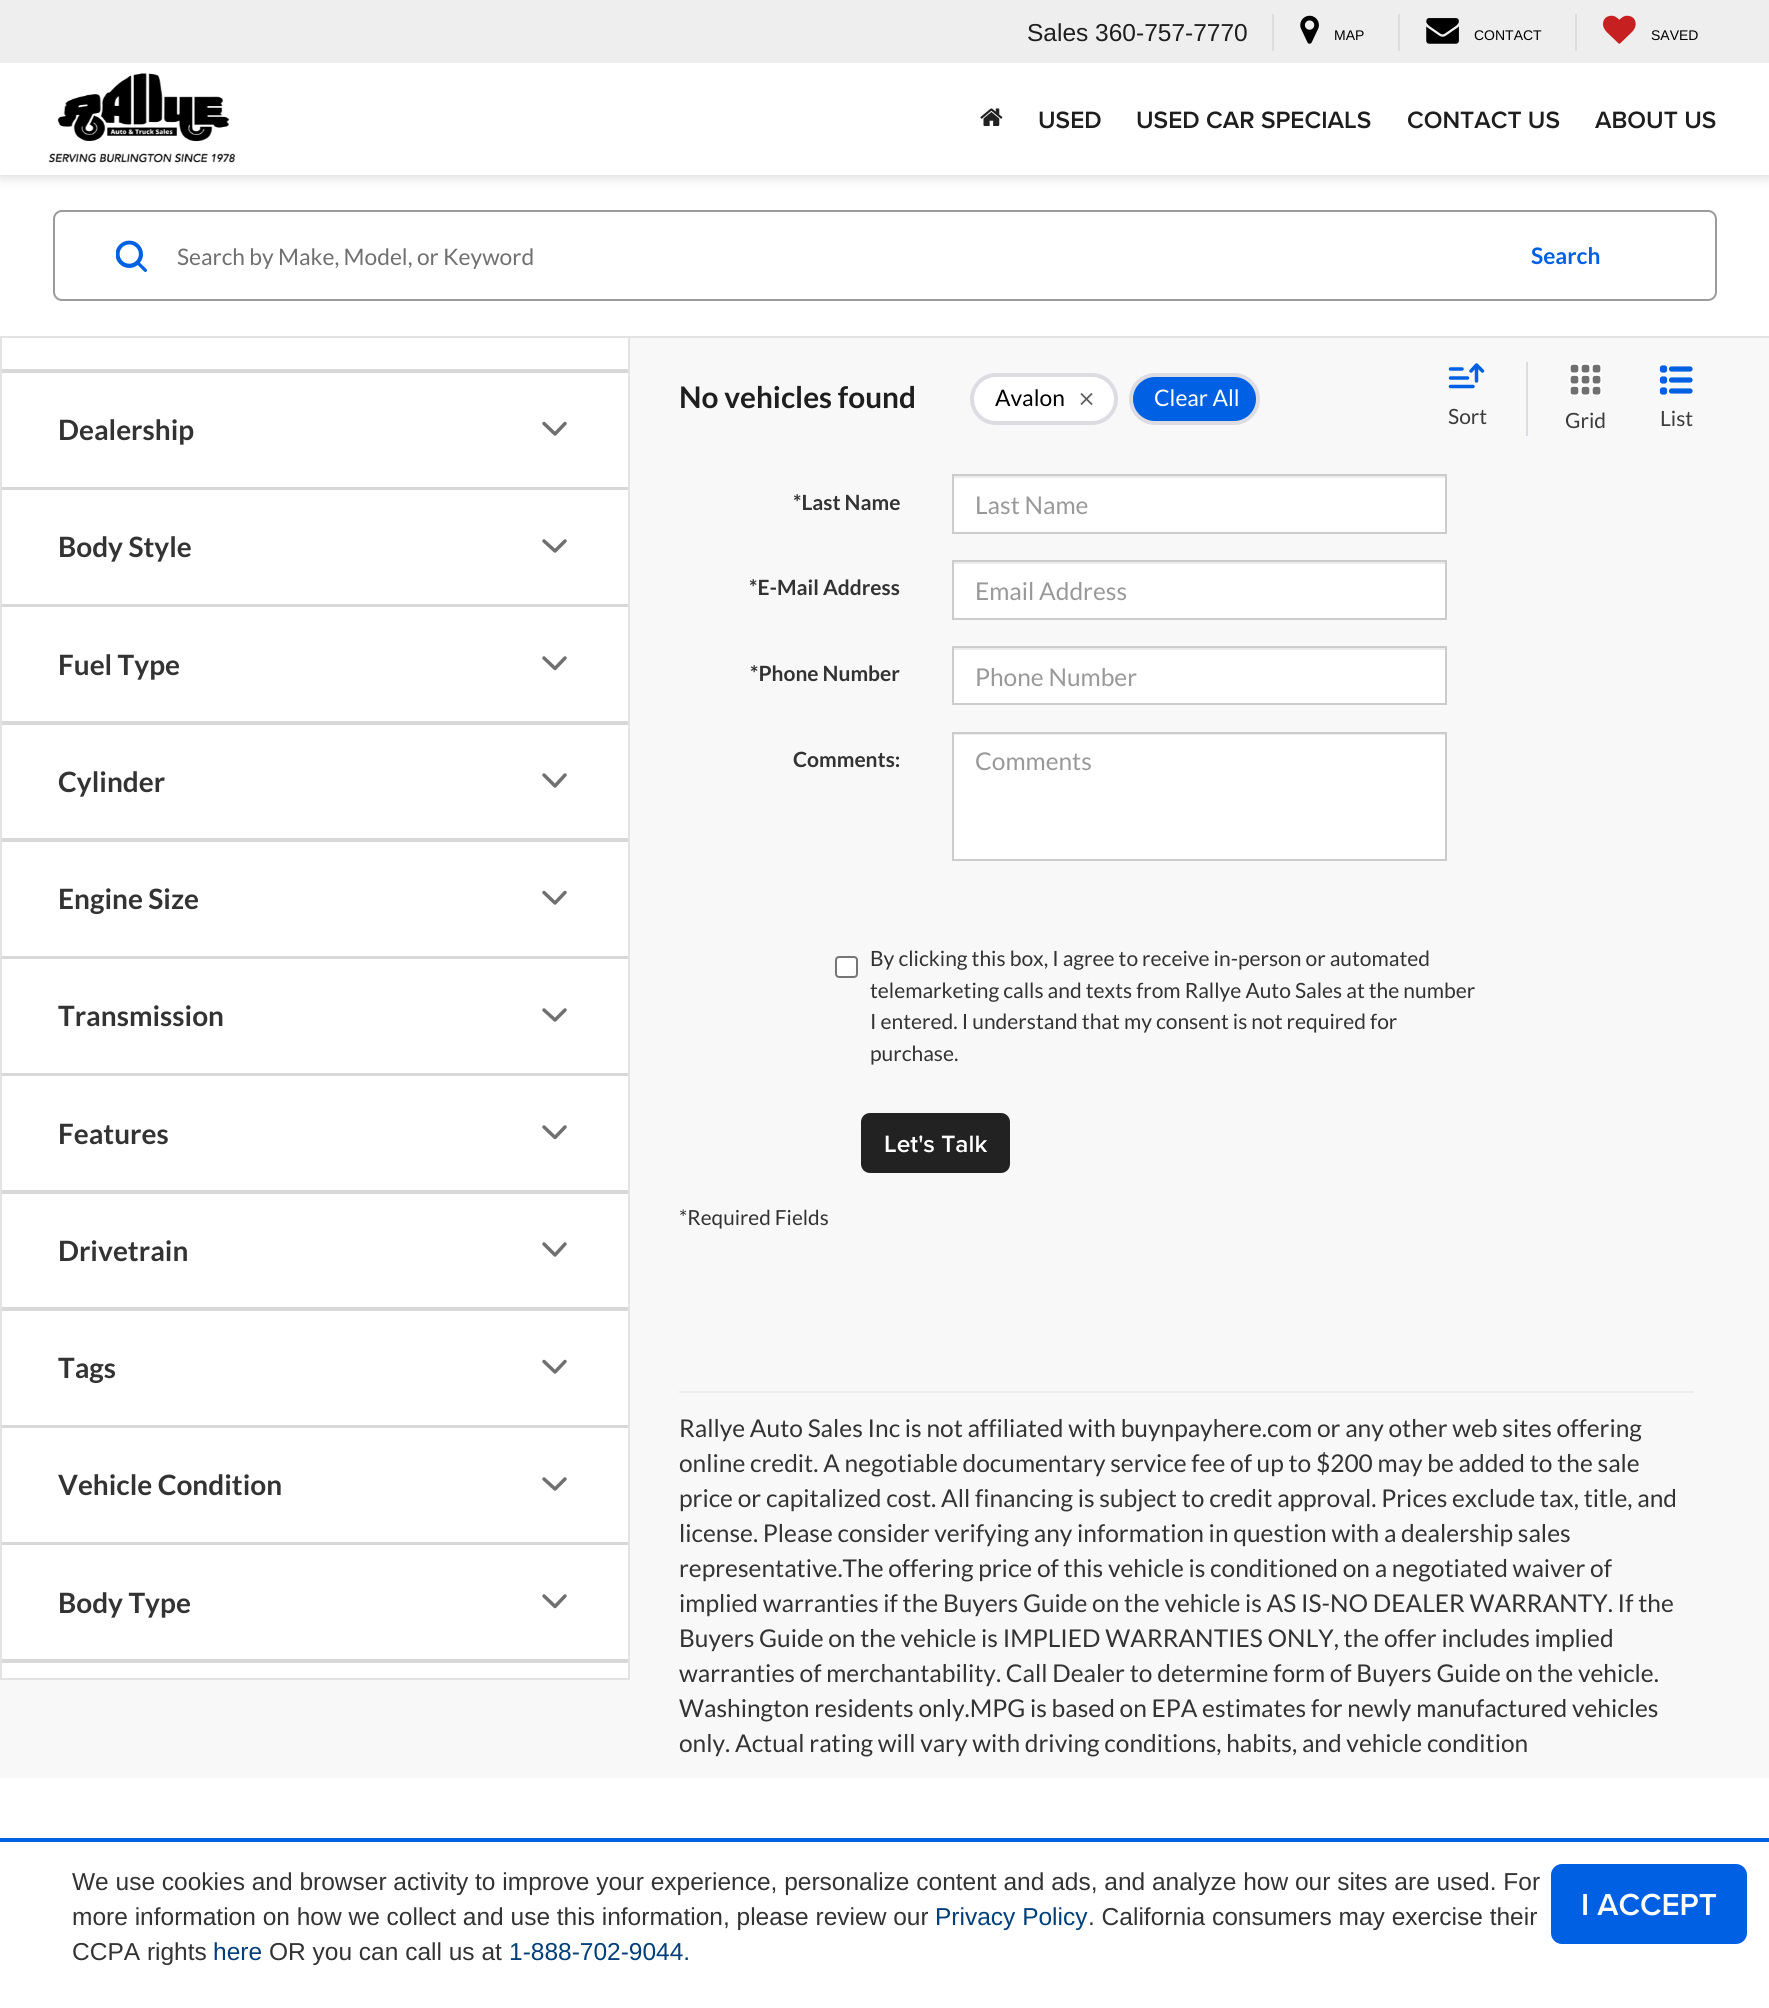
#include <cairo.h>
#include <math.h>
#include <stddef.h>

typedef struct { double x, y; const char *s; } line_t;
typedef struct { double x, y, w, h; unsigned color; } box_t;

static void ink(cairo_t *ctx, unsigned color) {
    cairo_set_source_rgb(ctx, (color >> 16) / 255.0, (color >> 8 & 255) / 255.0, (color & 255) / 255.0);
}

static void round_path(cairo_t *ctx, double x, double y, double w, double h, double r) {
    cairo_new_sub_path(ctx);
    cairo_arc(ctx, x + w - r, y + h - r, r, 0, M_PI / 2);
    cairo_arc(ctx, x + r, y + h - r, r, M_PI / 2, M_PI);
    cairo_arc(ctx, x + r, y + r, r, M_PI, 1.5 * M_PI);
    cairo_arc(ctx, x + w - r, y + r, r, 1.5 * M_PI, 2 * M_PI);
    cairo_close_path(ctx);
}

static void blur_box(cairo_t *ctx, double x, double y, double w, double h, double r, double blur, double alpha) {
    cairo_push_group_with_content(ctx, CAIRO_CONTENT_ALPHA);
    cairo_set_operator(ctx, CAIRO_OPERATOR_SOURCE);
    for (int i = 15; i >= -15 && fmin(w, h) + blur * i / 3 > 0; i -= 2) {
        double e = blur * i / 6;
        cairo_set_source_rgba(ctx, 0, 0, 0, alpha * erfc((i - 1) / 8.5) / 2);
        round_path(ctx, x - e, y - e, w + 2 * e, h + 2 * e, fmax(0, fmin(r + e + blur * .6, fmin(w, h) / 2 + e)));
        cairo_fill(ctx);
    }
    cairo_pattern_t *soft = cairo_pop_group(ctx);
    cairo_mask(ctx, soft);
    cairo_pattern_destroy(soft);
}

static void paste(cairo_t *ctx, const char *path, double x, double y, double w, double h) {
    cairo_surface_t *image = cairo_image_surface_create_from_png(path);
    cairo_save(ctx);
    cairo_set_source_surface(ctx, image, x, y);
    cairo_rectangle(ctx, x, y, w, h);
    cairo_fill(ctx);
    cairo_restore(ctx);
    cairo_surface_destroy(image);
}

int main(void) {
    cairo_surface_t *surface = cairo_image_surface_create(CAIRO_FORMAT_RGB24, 1769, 2008);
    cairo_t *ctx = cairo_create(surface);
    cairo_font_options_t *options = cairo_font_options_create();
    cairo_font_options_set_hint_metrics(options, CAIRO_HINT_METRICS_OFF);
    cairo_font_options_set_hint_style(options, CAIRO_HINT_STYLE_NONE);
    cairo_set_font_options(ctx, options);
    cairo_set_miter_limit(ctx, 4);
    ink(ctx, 0xFFFFFF);
    cairo_paint(ctx);
    ink(ctx, 0x000000);
    blur_box(ctx, 0, 0, 1769, 175, 0, 7, 0.2);
    ink(ctx, 0xEEEEEE);
    cairo_rectangle(ctx, 0, 0, 1769, 63);
    cairo_fill(ctx);
    cairo_select_font_face(ctx, "Liberation Sans", CAIRO_FONT_SLANT_NORMAL, CAIRO_FONT_WEIGHT_NORMAL);
    cairo_set_font_size(ctx, 24.5);
    ink(ctx, 0x1E1E1E);
    cairo_move_to(ctx, 1027, 41);
    cairo_show_text(ctx, "Sales 360-757-7770");
    ink(ctx, 0xDDDDDD);
    cairo_rectangle(ctx, 1272, 14, 2, 37);
    cairo_fill(ctx);
    paste(ctx, "media/1.png", 1300, 15, 19, 29);
    cairo_set_font_size(ctx, 14);
    ink(ctx, 0x000000);
    cairo_move_to(ctx, 1334, 40);
    cairo_show_text(ctx, "MAP");
    ink(ctx, 0xDDDDDD);
    cairo_rectangle(ctx, 1398, 14, 2, 37);
    cairo_fill(ctx);
    paste(ctx, "media/2.png", 1426, 18, 33, 26);
    ink(ctx, 0x000000);
    cairo_move_to(ctx, 1474, 40);
    cairo_show_text(ctx, "CONTACT");
    ink(ctx, 0xDDDDDD);
    cairo_rectangle(ctx, 1575, 14, 2, 37);
    cairo_fill(ctx);
    paste(ctx, "media/3.png", 1603, 15, 33, 29);
    ink(ctx, 0x000000);
    cairo_move_to(ctx, 1651, 40);
    cairo_show_text(ctx, "SAVED");
    ink(ctx, 0xFFFFFF);
    cairo_rectangle(ctx, 0, 63, 1769, 112);
    cairo_fill(ctx);
    paste(ctx, "media/4.png", 48, 73, 187, 90);
    paste(ctx, "media/5.png", 980, 108, 23, 18);
    cairo_select_font_face(ctx, "Proxima Nova SemiBold", CAIRO_FONT_SLANT_NORMAL, CAIRO_FONT_WEIGHT_NORMAL);
    cairo_set_font_size(ctx, 24.5);
    ink(ctx, 0x1E1E1E);
    {
        static const line_t items[] = {
            {1038, 128, "USED"},
            {1136, 128, "USED CAR SPECIALS"},
            {1407, 128, "CONTACT US"},
            {1595, 128, "ABOUT US"},
        };
        for (size_t i = 0; i < sizeof items / sizeof *items; i++) {
            cairo_move_to(ctx, items[i].x, items[i].y);
            cairo_show_text(ctx, items[i].s);
        }
    }
    ink(ctx, 0xF8F8F8);
    cairo_rectangle(ctx, 0, 464, 1769, 1314);
    cairo_fill(ctx);
    ink(ctx, 0xE3E3E3);
    cairo_rectangle(ctx, 0, 336, 1769, 2);
    cairo_fill(ctx);
    round_path(ctx, 54, 211, 1662, 89, 8);
    ink(ctx, 0x9B9B9B);
    cairo_stroke(ctx);
    paste(ctx, "media/6.png", 116, 240, 31, 32);
    cairo_select_font_face(ctx, "Lato", CAIRO_FONT_SLANT_NORMAL, CAIRO_FONT_WEIGHT_NORMAL);
    cairo_set_font_size(ctx, 22.75);
    ink(ctx, 0x707070);
    cairo_move_to(ctx, 177, 265);
    cairo_show_text(ctx, "Search by Make, Model, or Keyword");
    cairo_select_font_face(ctx, "Lato", CAIRO_FONT_SLANT_NORMAL, CAIRO_FONT_WEIGHT_BOLD);
    ink(ctx, 0x0060E3);
    cairo_move_to(ctx, 1531, 264);
    cairo_show_text(ctx, "Search");
    ink(ctx, 0xF8F8F8);
    cairo_rectangle(ctx, 630, 338, 1139, 126);
    cairo_fill(ctx);
    cairo_set_font_size(ctx, 29.75);
    ink(ctx, 0x1E1E1E);
    cairo_move_to(ctx, 679, 408);
    cairo_show_text(ctx, "No vehicles found");
    ink(ctx, 0xFFFFFF);
    round_path(ctx, 972, 375, 144, 48, 24);
    cairo_fill_preserve(ctx);
    ink(ctx, 0xDCDCE2);
    cairo_set_line_width(ctx, 4);
    cairo_stroke(ctx);
    cairo_select_font_face(ctx, "Lato", CAIRO_FONT_SLANT_NORMAL, CAIRO_FONT_WEIGHT_NORMAL);
    cairo_set_font_size(ctx, 22.75);
    ink(ctx, 0x000000);
    cairo_move_to(ctx, 995, 406);
    cairo_show_text(ctx, "Avalon");
    paste(ctx, "media/7.png", 1080, 393, 13, 12);
    ink(ctx, 0x0060E3);
    round_path(ctx, 1131, 375, 127, 48, 24);
    cairo_fill_preserve(ctx);
    ink(ctx, 0xDCDCE2);
    cairo_stroke(ctx);
    ink(ctx, 0xFFFFFF);
    cairo_move_to(ctx, 1154, 406);
    cairo_show_text(ctx, "Clear All");
    cairo_new_path(ctx);
    cairo_move_to(ctx, 1450.5, 386.5);
    cairo_line_to(ctx, 1473, 386.5);
    cairo_move_to(ctx, 1450.5, 378);
    cairo_line_to(ctx, 1467.5, 378);
    cairo_move_to(ctx, 1450.5, 369);
    cairo_line_to(ctx, 1462, 369);
    cairo_move_to(ctx, 1476.5, 381);
    cairo_line_to(ctx, 1476.5, 365);
    cairo_move_to(ctx, 1476.5, 365);
    cairo_line_to(ctx, 1482.5, 371);
    cairo_move_to(ctx, 1476.5, 365);
    cairo_line_to(ctx, 1471, 371);
    ink(ctx, 0x0060E3);
    cairo_set_line_width(ctx, 3.5);
    cairo_set_line_cap(ctx, CAIRO_LINE_CAP_ROUND);
    cairo_set_line_join(ctx, CAIRO_LINE_JOIN_ROUND);
    cairo_stroke(ctx);
    cairo_set_font_size(ctx, 21);
    ink(ctx, 0x3B3B3B);
    cairo_move_to(ctx, 1448, 424);
    cairo_show_text(ctx, "Sort");
    ink(ctx, 0xDCDCE2);
    cairo_rectangle(ctx, 1526, 362, 2, 74);
    cairo_fill(ctx);
    paste(ctx, "media/8.png", 1569, 363, 33, 33);
    ink(ctx, 0x3B3B3B);
    cairo_move_to(ctx, 1565, 428);
    cairo_show_text(ctx, "Grid");
    cairo_new_path(ctx);
    cairo_move_to(ctx, 1671.5, 369);
    cairo_line_to(ctx, 1690, 369);
    cairo_move_to(ctx, 1671.5, 380);
    cairo_line_to(ctx, 1690, 380);
    cairo_move_to(ctx, 1671.5, 391);
    cairo_line_to(ctx, 1690, 391);
    cairo_move_to(ctx, 1662.5, 370);
    cairo_line_to(ctx, 1664.5, 370);
    cairo_line_to(ctx, 1664.5, 368);
    cairo_line_to(ctx, 1662.5, 368);
    cairo_close_path(ctx);
    cairo_move_to(ctx, 1662.5, 381);
    cairo_line_to(ctx, 1664.5, 381);
    cairo_line_to(ctx, 1664.5, 379);
    cairo_line_to(ctx, 1662.5, 379);
    cairo_close_path(ctx);
    cairo_move_to(ctx, 1662.5, 392);
    cairo_line_to(ctx, 1664.5, 392);
    cairo_line_to(ctx, 1664.5, 390);
    cairo_line_to(ctx, 1662.5, 390);
    cairo_close_path(ctx);
    ink(ctx, 0x0060E3);
    cairo_set_line_width(ctx, 5.2);
    cairo_stroke(ctx);
    ink(ctx, 0x3B3B3B);
    cairo_move_to(ctx, 1660, 426);
    cairo_show_text(ctx, "List");
    {
        static const box_t items[] = {
            {2, 464, 626, 1214, 0xFFFFFF},
            {628, 338, 2, 1342, 0xE3E3E3},
            {0, 1678, 630, 2, 0xE3E3E3},
            {0, 338, 2, 1342, 0xE3E3E3},
            {2, 369, 626, 4, 0xD8D8D8},
            {2, 487, 626, 3, 0xD8D8D8},
        };
        for (size_t i = 0; i < sizeof items / sizeof *items; i++) {
            ink(ctx, items[i].color);
            cairo_rectangle(ctx, items[i].x, items[i].y, items[i].w, items[i].h);
            cairo_fill(ctx);
        }
    }
    cairo_select_font_face(ctx, "Lato", CAIRO_FONT_SLANT_NORMAL, CAIRO_FONT_WEIGHT_BOLD);
    cairo_set_font_size(ctx, 28);
    ink(ctx, 0x333333);
    cairo_move_to(ctx, 58, 440);
    cairo_show_text(ctx, "Dealership");
    cairo_new_path(ctx);
    cairo_move_to(ctx, 544, 423.5);
    cairo_line_to(ctx, 555, 434);
    cairo_line_to(ctx, 565, 423.5);
    ink(ctx, 0x707070);
    cairo_set_line_width(ctx, 3.5);
    cairo_stroke(ctx);
    ink(ctx, 0xD8D8D8);
    cairo_rectangle(ctx, 2, 604, 626, 3);
    cairo_fill(ctx);
    ink(ctx, 0x333333);
    cairo_move_to(ctx, 58, 557);
    cairo_show_text(ctx, "Body Style");
    cairo_new_path(ctx);
    cairo_move_to(ctx, 544, 541);
    cairo_line_to(ctx, 555, 551);
    cairo_line_to(ctx, 565, 541);
    ink(ctx, 0x707070);
    cairo_stroke(ctx);
    ink(ctx, 0xD8D8D8);
    cairo_rectangle(ctx, 2, 721, 626, 4);
    cairo_fill(ctx);
    ink(ctx, 0x333333);
    cairo_move_to(ctx, 58, 675);
    cairo_show_text(ctx, "Fuel Type");
    cairo_new_path(ctx);
    cairo_move_to(ctx, 544, 658);
    cairo_line_to(ctx, 555, 668.5);
    cairo_line_to(ctx, 565, 658);
    ink(ctx, 0x707070);
    cairo_stroke(ctx);
    ink(ctx, 0xD8D8D8);
    cairo_rectangle(ctx, 2, 838, 626, 4);
    cairo_fill(ctx);
    ink(ctx, 0x333333);
    cairo_move_to(ctx, 58, 792);
    cairo_show_text(ctx, "Cylinder");
    cairo_new_path(ctx);
    cairo_move_to(ctx, 544, 775);
    cairo_line_to(ctx, 555, 786);
    cairo_line_to(ctx, 565, 775);
    ink(ctx, 0x707070);
    cairo_stroke(ctx);
    ink(ctx, 0xD8D8D8);
    cairo_rectangle(ctx, 2, 956, 626, 3);
    cairo_fill(ctx);
    ink(ctx, 0x333333);
    cairo_move_to(ctx, 58, 909);
    cairo_show_text(ctx, "Engine Size");
    cairo_new_path(ctx);
    cairo_move_to(ctx, 544, 892.5);
    cairo_line_to(ctx, 555, 903);
    cairo_line_to(ctx, 565, 892.5);
    ink(ctx, 0x707070);
    cairo_stroke(ctx);
    ink(ctx, 0xD8D8D8);
    cairo_rectangle(ctx, 2, 1073, 626, 3);
    cairo_fill(ctx);
    ink(ctx, 0x333333);
    cairo_move_to(ctx, 58, 1026);
    cairo_show_text(ctx, "Transmission");
    cairo_new_path(ctx);
    cairo_move_to(ctx, 544, 1010);
    cairo_line_to(ctx, 555, 1020);
    cairo_line_to(ctx, 565, 1010);
    ink(ctx, 0x707070);
    cairo_stroke(ctx);
    ink(ctx, 0xD8D8D8);
    cairo_rectangle(ctx, 2, 1190, 626, 4);
    cairo_fill(ctx);
    ink(ctx, 0x333333);
    cairo_move_to(ctx, 58, 1144);
    cairo_show_text(ctx, "Features");
    cairo_new_path(ctx);
    cairo_move_to(ctx, 544, 1127);
    cairo_line_to(ctx, 555, 1137.5);
    cairo_line_to(ctx, 565, 1127);
    ink(ctx, 0x707070);
    cairo_stroke(ctx);
    ink(ctx, 0xD8D8D8);
    cairo_rectangle(ctx, 2, 1307, 626, 4);
    cairo_fill(ctx);
    ink(ctx, 0x333333);
    cairo_move_to(ctx, 58, 1261);
    cairo_show_text(ctx, "Drivetrain");
    cairo_new_path(ctx);
    cairo_move_to(ctx, 544, 1244);
    cairo_line_to(ctx, 555, 1255);
    cairo_line_to(ctx, 565, 1244);
    ink(ctx, 0x707070);
    cairo_stroke(ctx);
    ink(ctx, 0xD8D8D8);
    cairo_rectangle(ctx, 2, 1425, 626, 3);
    cairo_fill(ctx);
    ink(ctx, 0x333333);
    cairo_move_to(ctx, 58, 1378);
    cairo_show_text(ctx, "Tags");
    cairo_new_path(ctx);
    cairo_move_to(ctx, 544, 1361.5);
    cairo_line_to(ctx, 555, 1372);
    cairo_line_to(ctx, 565, 1361.5);
    ink(ctx, 0x707070);
    cairo_stroke(ctx);
    ink(ctx, 0xD8D8D8);
    cairo_rectangle(ctx, 2, 1542, 626, 3);
    cairo_fill(ctx);
    ink(ctx, 0x333333);
    cairo_move_to(ctx, 58, 1495);
    cairo_show_text(ctx, "Vehicle Condition");
    cairo_new_path(ctx);
    cairo_move_to(ctx, 544, 1479);
    cairo_line_to(ctx, 555, 1489);
    cairo_line_to(ctx, 565, 1479);
    ink(ctx, 0x707070);
    cairo_stroke(ctx);
    ink(ctx, 0xD8D8D8);
    cairo_rectangle(ctx, 2, 1659, 626, 4);
    cairo_fill(ctx);
    ink(ctx, 0x333333);
    cairo_move_to(ctx, 58, 1613);
    cairo_show_text(ctx, "Body Type");
    cairo_new_path(ctx);
    cairo_move_to(ctx, 544, 1596);
    cairo_line_to(ctx, 555, 1606.5);
    cairo_line_to(ctx, 565, 1596);
    ink(ctx, 0x707070);
    cairo_stroke(ctx);
    cairo_set_font_size(ctx, 21);
    ink(ctx, 0x333333);
    cairo_move_to(ctx, 793, 510);
    cairo_show_text(ctx, "*Last Name");
    ink(ctx, 0xFFFFFF);
    cairo_rectangle(ctx, 954, 478, 491, 54);
    cairo_fill(ctx);
    ink(ctx, 0xECECEC);
    cairo_rectangle(ctx, 954, 476, 492, 2);
    cairo_fill(ctx);
    cairo_rectangle(ctx, 953, 475, 493, 58);
    ink(ctx, 0xCCCCCC);
    cairo_set_line_width(ctx, 2);
    cairo_set_line_cap(ctx, CAIRO_LINE_CAP_BUTT);
    cairo_set_line_join(ctx, CAIRO_LINE_JOIN_MITER);
    cairo_stroke(ctx);
    cairo_select_font_face(ctx, "Lato", CAIRO_FONT_SLANT_NORMAL, CAIRO_FONT_WEIGHT_NORMAL);
    cairo_set_font_size(ctx, 24.5);
    ink(ctx, 0x999999);
    cairo_move_to(ctx, 975, 514);
    cairo_show_text(ctx, "Last Name");
    cairo_select_font_face(ctx, "Lato", CAIRO_FONT_SLANT_NORMAL, CAIRO_FONT_WEIGHT_BOLD);
    cairo_set_font_size(ctx, 21);
    ink(ctx, 0x333333);
    cairo_move_to(ctx, 749, 595);
    cairo_show_text(ctx, "*E-Mail Address");
    ink(ctx, 0xFFFFFF);
    cairo_rectangle(ctx, 954, 564, 491, 54);
    cairo_fill(ctx);
    ink(ctx, 0xECECEC);
    cairo_rectangle(ctx, 954, 562, 492, 2);
    cairo_fill(ctx);
    cairo_rectangle(ctx, 953, 561, 493, 58);
    ink(ctx, 0xCCCCCC);
    cairo_stroke(ctx);
    cairo_select_font_face(ctx, "Lato", CAIRO_FONT_SLANT_NORMAL, CAIRO_FONT_WEIGHT_NORMAL);
    cairo_set_font_size(ctx, 24.5);
    ink(ctx, 0x999999);
    cairo_move_to(ctx, 975, 600);
    cairo_show_text(ctx, "Email Address");
    cairo_select_font_face(ctx, "Lato", CAIRO_FONT_SLANT_NORMAL, CAIRO_FONT_WEIGHT_BOLD);
    cairo_set_font_size(ctx, 21);
    ink(ctx, 0x333333);
    cairo_move_to(ctx, 750, 681);
    cairo_show_text(ctx, "*Phone Number");
    ink(ctx, 0xFFFFFF);
    cairo_rectangle(ctx, 954, 650, 491, 53);
    cairo_fill(ctx);
    ink(ctx, 0xECECEC);
    cairo_rectangle(ctx, 954, 648, 492, 2);
    cairo_fill(ctx);
    cairo_rectangle(ctx, 953, 647, 493, 57);
    ink(ctx, 0xCCCCCC);
    cairo_stroke(ctx);
    cairo_select_font_face(ctx, "Lato", CAIRO_FONT_SLANT_NORMAL, CAIRO_FONT_WEIGHT_NORMAL);
    cairo_set_font_size(ctx, 24.5);
    ink(ctx, 0x999999);
    cairo_move_to(ctx, 975, 686);
    cairo_show_text(ctx, "Phone Number");
    cairo_select_font_face(ctx, "Lato", CAIRO_FONT_SLANT_NORMAL, CAIRO_FONT_WEIGHT_BOLD);
    cairo_set_font_size(ctx, 21);
    ink(ctx, 0x333333);
    cairo_move_to(ctx, 793, 767);
    cairo_show_text(ctx, "Comments:");
    ink(ctx, 0xFFFFFF);
    cairo_rectangle(ctx, 954, 735, 491, 124);
    cairo_fill(ctx);
    ink(ctx, 0xECECEC);
    cairo_rectangle(ctx, 954, 734, 492, 1);
    cairo_fill(ctx);
    cairo_rectangle(ctx, 953, 733, 493, 127);
    ink(ctx, 0xCCCCCC);
    cairo_stroke(ctx);
    cairo_select_font_face(ctx, "Lato", CAIRO_FONT_SLANT_NORMAL, CAIRO_FONT_WEIGHT_NORMAL);
    cairo_set_font_size(ctx, 24.5);
    ink(ctx, 0x999999);
    cairo_move_to(ctx, 975, 770);
    cairo_show_text(ctx, "Comments");
    ink(ctx, 0xFFFFFF);
    round_path(ctx, 836, 957, 21, 20, 3);
    cairo_fill_preserve(ctx);
    ink(ctx, 0x767676);
    cairo_stroke(ctx);
    cairo_set_font_size(ctx, 21);
    ink(ctx, 0x333333);
    {
        static const line_t items[] = {
            {870, 966, "By clicking this box, I agree to receive in-person or automated"},
            {870, 998, "telemarketing calls and texts from Rallye Auto Sales at the number"},
            {870, 1029, "I entered. I understand that my consent is not required for"},
            {870, 1061, "purchase."},
        };
        for (size_t i = 0; i < sizeof items / sizeof *items; i++) {
            cairo_move_to(ctx, items[i].x, items[i].y);
            cairo_show_text(ctx, items[i].s);
        }
    }
    ink(ctx, 0x222222);
    round_path(ctx, 862, 1114, 147, 58, 8);
    cairo_fill_preserve(ctx);
    cairo_stroke(ctx);
    cairo_select_font_face(ctx, "Proxima Nova SemiBold", CAIRO_FONT_SLANT_NORMAL, CAIRO_FONT_WEIGHT_NORMAL);
    cairo_set_font_size(ctx, 24.5);
    ink(ctx, 0xFFFFFF);
    cairo_move_to(ctx, 884, 1152);
    cairo_show_text(ctx, "Let's Talk");
    cairo_select_font_face(ctx, "Lato", CAIRO_FONT_SLANT_NORMAL, CAIRO_FONT_WEIGHT_NORMAL);
    cairo_set_font_size(ctx, 20.75);
    ink(ctx, 0x333333);
    cairo_move_to(ctx, 679, 1225);
    cairo_show_text(ctx, "*Required Fields");
    ink(ctx, 0xEDEDED);
    cairo_rectangle(ctx, 679, 1391, 1015, 2);
    cairo_fill(ctx);
    cairo_set_font_size(ctx, 24.5);
    ink(ctx, 0x333333);
    {
        static const line_t items[] = {
            {679, 1437, "Rallye Auto Sales Inc is not affiliated with buynpayhere.com or any other web sites offering"},
            {679, 1472, "online credit. A negotiable documentary service fee of up to $200 may be added to the sale"},
            {679, 1507, "price or capitalized cost. All financing is subject to credit approval. Prices exclude tax, title, and"},
            {679, 1542, "license. Please consider verifying any information in question with a dealership sales"},
            {679, 1577, "representative.The offering price of this vehicle is conditioned on a negotiated waiver of"},
            {679, 1612, "implied warranties if the Buyers Guide on the vehicle is AS IS-NO DEALER WARRANTY. If the"},
            {679, 1647, "Buyers Guide on the vehicle is IMPLIED WARRANTIES ONLY, the offer includes implied"},
            {679, 1682, "warranties of merchantability. Call Dealer to determine form of Buyers Guide on the vehicle."},
            {679, 1717, "Washington residents only.MPG is based on EPA estimates for newly manufactured vehicles"},
            {679, 1752, "only. Actual rating will vary with driving conditions, habits, and vehicle condition"},
        };
        for (size_t i = 0; i < sizeof items / sizeof *items; i++) {
            cairo_move_to(ctx, items[i].x, items[i].y);
            cairo_show_text(ctx, items[i].s);
        }
    }
    ink(ctx, 0x0060E3);
    cairo_rectangle(ctx, 0, 1838, 1769, 4);
    cairo_fill(ctx);
    cairo_select_font_face(ctx, "Liberation Sans", CAIRO_FONT_SLANT_NORMAL, CAIRO_FONT_WEIGHT_NORMAL);
    ink(ctx, 0x333333);
    cairo_move_to(ctx, 72, 1890);
    cairo_show_text(ctx, "We use cookies and browser activity to improve your experience, personalize content and ads, and analyze how our sites are used. For");
    cairo_move_to(ctx, 72, 1925);
    cairo_show_text(ctx, "more information on how we collect and use this information, please review our");
    ink(ctx, 0x003F7A);
    cairo_move_to(ctx, 935, 1925);
    cairo_show_text(ctx, "Privacy Policy");
    ink(ctx, 0x333333);
    cairo_move_to(ctx, 1088, 1925);
    cairo_show_text(ctx, ". California consumers may exercise their");
    cairo_move_to(ctx, 72, 1960);
    cairo_show_text(ctx, "CCPA rights");
    ink(ctx, 0x003F7A);
    cairo_move_to(ctx, 213, 1960);
    cairo_show_text(ctx, "here");
    ink(ctx, 0x333333);
    cairo_move_to(ctx, 269, 1960);
    cairo_show_text(ctx, "OR you can call us at");
    ink(ctx, 0x003F7A);
    cairo_move_to(ctx, 509, 1960);
    cairo_show_text(ctx, "1-888-702-9044.");
    ink(ctx, 0x0060E3);
    round_path(ctx, 1552, 1865, 194, 78, 10);
    cairo_fill_preserve(ctx);
    cairo_stroke(ctx);
    cairo_select_font_face(ctx, "Proxima Nova SemiBold", CAIRO_FONT_SLANT_NORMAL, CAIRO_FONT_WEIGHT_NORMAL);
    cairo_set_font_size(ctx, 31.5);
    ink(ctx, 0xFFFFFF);
    cairo_move_to(ctx, 1581, 1915);
    cairo_show_text(ctx, "I ACCEPT");
    cairo_surface_write_to_png(surface, "image.png");
    cairo_font_options_destroy(options);
    cairo_destroy(ctx);
    cairo_surface_destroy(surface);
    return 0;
}
